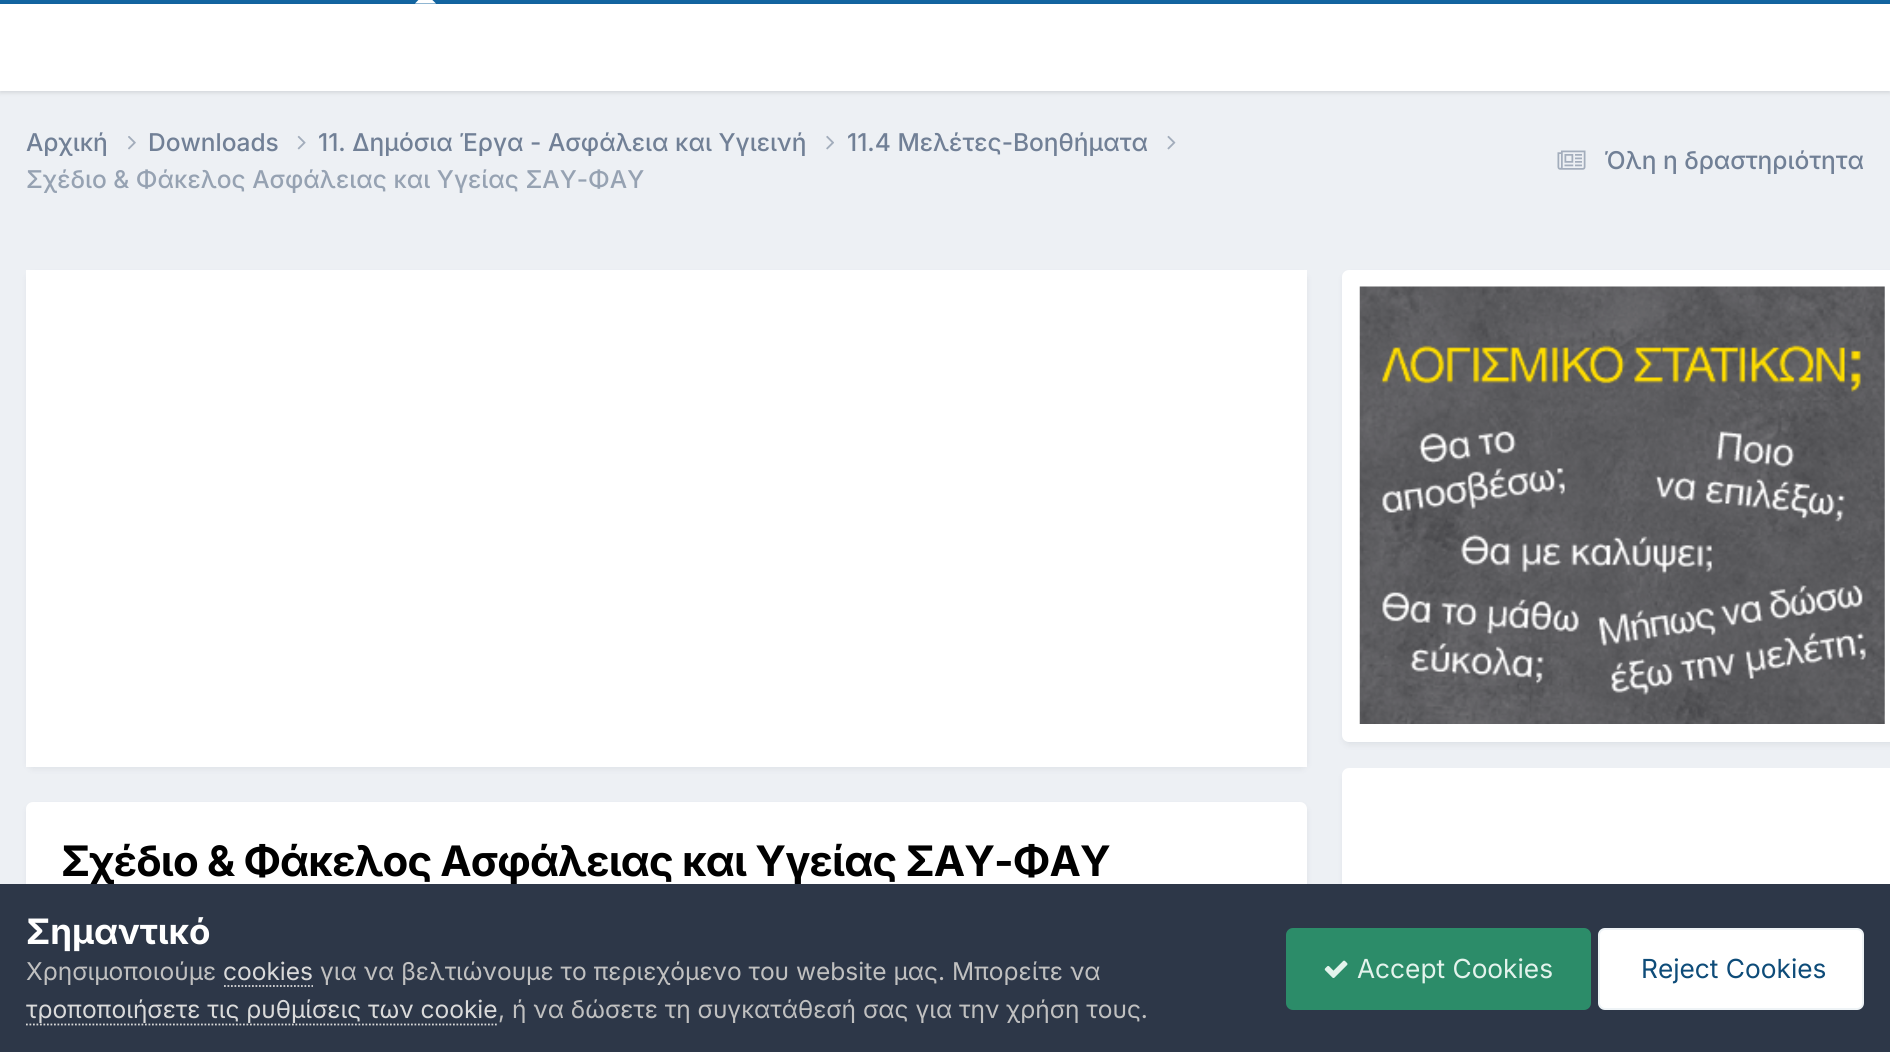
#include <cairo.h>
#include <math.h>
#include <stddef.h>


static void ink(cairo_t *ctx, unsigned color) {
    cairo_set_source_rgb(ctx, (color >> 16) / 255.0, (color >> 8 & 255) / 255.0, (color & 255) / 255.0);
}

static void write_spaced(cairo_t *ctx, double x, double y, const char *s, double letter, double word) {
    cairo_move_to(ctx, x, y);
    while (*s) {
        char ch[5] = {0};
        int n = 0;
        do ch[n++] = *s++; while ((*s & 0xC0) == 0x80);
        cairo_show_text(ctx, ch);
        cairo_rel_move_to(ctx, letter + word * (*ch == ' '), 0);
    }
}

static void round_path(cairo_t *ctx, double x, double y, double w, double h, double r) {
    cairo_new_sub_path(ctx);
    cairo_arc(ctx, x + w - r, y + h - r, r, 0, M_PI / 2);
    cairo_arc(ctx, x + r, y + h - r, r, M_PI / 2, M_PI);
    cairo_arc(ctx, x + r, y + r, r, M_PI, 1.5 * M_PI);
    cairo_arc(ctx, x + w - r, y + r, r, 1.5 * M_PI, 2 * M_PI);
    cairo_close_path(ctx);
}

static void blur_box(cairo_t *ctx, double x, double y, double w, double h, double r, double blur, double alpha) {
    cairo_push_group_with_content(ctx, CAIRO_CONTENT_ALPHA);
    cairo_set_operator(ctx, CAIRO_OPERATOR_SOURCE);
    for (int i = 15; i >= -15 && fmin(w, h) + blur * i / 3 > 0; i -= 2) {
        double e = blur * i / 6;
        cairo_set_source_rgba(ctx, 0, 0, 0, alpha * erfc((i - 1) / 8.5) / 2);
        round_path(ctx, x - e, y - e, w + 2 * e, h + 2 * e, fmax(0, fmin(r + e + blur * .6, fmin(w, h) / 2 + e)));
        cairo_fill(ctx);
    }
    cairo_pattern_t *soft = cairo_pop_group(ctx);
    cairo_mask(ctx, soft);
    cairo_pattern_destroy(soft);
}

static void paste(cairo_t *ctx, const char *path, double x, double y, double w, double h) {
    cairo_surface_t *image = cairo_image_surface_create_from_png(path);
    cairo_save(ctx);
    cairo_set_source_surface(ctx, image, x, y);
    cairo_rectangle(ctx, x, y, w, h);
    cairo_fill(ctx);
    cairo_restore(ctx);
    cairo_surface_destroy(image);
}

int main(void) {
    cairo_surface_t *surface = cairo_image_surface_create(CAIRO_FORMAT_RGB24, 1890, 1052);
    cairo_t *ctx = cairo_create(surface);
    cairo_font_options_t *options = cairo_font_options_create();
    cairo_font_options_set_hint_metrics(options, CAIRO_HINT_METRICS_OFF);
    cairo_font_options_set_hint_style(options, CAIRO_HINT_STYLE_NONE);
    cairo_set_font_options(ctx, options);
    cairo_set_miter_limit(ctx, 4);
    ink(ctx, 0xEDF0F4);
    cairo_paint(ctx);
    ink(ctx, 0x1265A1);
    cairo_rectangle(ctx, 0, 0, 1890, 4);
    cairo_fill(ctx);
    ink(ctx, 0x000000);
    blur_box(ctx, 0, 5, 1890, 88, 0, 2, 0.1);
    ink(ctx, 0xFFFFFF);
    cairo_rectangle(ctx, 0, 4, 1890, 87);
    cairo_fill(ctx);
    cairo_new_path(ctx);
    cairo_move_to(ctx, 436, 3.5);
    cairo_line_to(ctx, 415, 3.5);
    cairo_line_to(ctx, 425, -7);
    cairo_close_path(ctx);
    cairo_fill(ctx);
    cairo_select_font_face(ctx, "Inter Medium", CAIRO_FONT_SLANT_NORMAL, CAIRO_FONT_WEIGHT_NORMAL);
    cairo_set_font_size(ctx, 24.5);
    ink(ctx, 0x718096);
    cairo_move_to(ctx, 26, 151);
    cairo_show_text(ctx, "Αρχική");
    paste(ctx, "media/1.png", 128, 136, 8, 14);
    cairo_move_to(ctx, 148, 151);
    cairo_show_text(ctx, "Downloads");
    paste(ctx, "media/2.png", 297, 135, 9, 15);
    cairo_move_to(ctx, 318, 151);
    cairo_show_text(ctx, "11. Δημόσια Έργα - Ασφάλεια και Υγιεινή");
    paste(ctx, "media/3.png", 826, 135, 8, 15);
    cairo_move_to(ctx, 847, 151);
    cairo_show_text(ctx, "11.4 Μελέτες-Βοηθήματα");
    paste(ctx, "media/4.png", 1167, 135, 9, 15);
    ink(ctx, 0x96A2B2);
    cairo_move_to(ctx, 26, 188);
    cairo_show_text(ctx, "Σχέδιο & Φάκελος Ασφάλειας και Υγείας ΣΑΥ-ΦΑΥ");
    paste(ctx, "media/5.png", 1557, 150, 29, 20);
    ink(ctx, 0x718096);
    cairo_move_to(ctx, 1604, 169);
    cairo_show_text(ctx, "Όλη η δραστηριότητα");
    ink(ctx, 0x2D3748);
    blur_box(ctx, 28, 275, 1278, 493, 5, 3.5, 0.1);
    ink(ctx, 0xFFFFFF);
    cairo_rectangle(ctx, 26, 270, 1281, 497);
    cairo_fill(ctx);
    ink(ctx, 0x2D3748);
    blur_box(ctx, 28, 807, 1278, 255, 5, 3.5, 0.1);
    ink(ctx, 0xFFFFFF);
    round_path(ctx, 26, 802, 1281, 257, 7);
    cairo_fill(ctx);
    cairo_select_font_face(ctx, "Inter", CAIRO_FONT_SLANT_NORMAL, CAIRO_FONT_WEIGHT_BOLD);
    cairo_set_font_size(ctx, 42);
    ink(ctx, 0x000000);
    write_spaced(ctx, 61, 876, "Σχέδιο & Φάκελος Ασφάλειας και Υγείας ΣΑΥ-ΦΑΥ", -0.85, 0);
    ink(ctx, 0x2D3748);
    blur_box(ctx, 1344, 275, 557, 469, 5, 3.5, 0.1);
    ink(ctx, 0xFFFFFF);
    round_path(ctx, 1342, 270, 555, 472, 7);
    cairo_fill(ctx);
    paste(ctx, "media/6.png", 1359, 286, 526, 438);
    ink(ctx, 0x2D3748);
    blur_box(ctx, 1344, 774, 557, 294, 5, 3.5, 0.1);
    ink(ctx, 0xFFFFFF);
    round_path(ctx, 1342, 768, 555, 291, 7);
    cairo_fill(ctx);
    ink(ctx, 0x2D3748);
    cairo_rectangle(ctx, 0, 884, 1890, 168);
    cairo_fill(ctx);
    cairo_set_font_size(ctx, 35);
    ink(ctx, 0xFFFFFF);
    cairo_move_to(ctx, 26, 944);
    cairo_show_text(ctx, "Σημαντικό");
    cairo_select_font_face(ctx, "Inter", CAIRO_FONT_SLANT_NORMAL, CAIRO_FONT_WEIGHT_NORMAL);
    cairo_set_font_size(ctx, 24.5);
    ink(ctx, 0xC0C0C0);
    cairo_move_to(ctx, 26, 980);
    cairo_show_text(ctx, "Χρησιμοποιούμε");
    ink(ctx, 0xDADADA);
    cairo_move_to(ctx, 223, 980);
    cairo_show_text(ctx, "cookies");
    cairo_new_path(ctx);
    cairo_move_to(ctx, 224, 986);
    cairo_line_to(ctx, 313, 986);
    cairo_set_line_width(ctx, 1.8);
    cairo_set_dash(ctx, (double[]){1.75, 1.75}, 2, 0);
    cairo_stroke(ctx);
    ink(ctx, 0xC0C0C0);
    cairo_move_to(ctx, 320, 980);
    cairo_show_text(ctx, "για να βελτιώνουμε το περιεχόμενο του website μας. Μπορείτε να");
    ink(ctx, 0xDADADA);
    cairo_move_to(ctx, 26, 1018);
    cairo_show_text(ctx, "τροποποιήσετε τις ρυθμίσεις των cookie");
    cairo_new_path(ctx);
    cairo_move_to(ctx, 26, 1024.5);
    cairo_line_to(ctx, 497, 1024.5);
    cairo_stroke(ctx);
    ink(ctx, 0xC0C0C0);
    cairo_move_to(ctx, 498, 1018);
    cairo_show_text(ctx, ", ή να δώσετε τη συγκατάθεσή σας για την χρήση τους.");
    ink(ctx, 0x2C8C69);
    round_path(ctx, 1286, 928, 305, 82, 7);
    cairo_fill(ctx);
    paste(ctx, "media/7.png", 1324, 960, 24, 18);
    cairo_set_font_size(ctx, 26.25);
    ink(ctx, 0xE3F3EC);
    cairo_move_to(ctx, 1357, 978);
    cairo_show_text(ctx, "Accept Cookies");
    ink(ctx, 0xFFFFFF);
    round_path(ctx, 1598, 928, 266, 82, 7);
    cairo_fill(ctx);
    round_path(ctx, 1599, 929, 264, 80, 6);
    cairo_set_source_rgba(ctx, 0.055, 0.298, 0.475, 0.07);
    cairo_set_line_width(ctx, 2);
    cairo_set_dash(ctx, NULL, 0, 0);
    cairo_stroke(ctx);
    ink(ctx, 0x0E4C79);
    cairo_move_to(ctx, 1641, 978);
    cairo_show_text(ctx, "Reject Cookies");
    cairo_surface_write_to_png(surface, "image.png");
    cairo_font_options_destroy(options);
    cairo_destroy(ctx);
    cairo_surface_destroy(surface);
    return 0;
}
